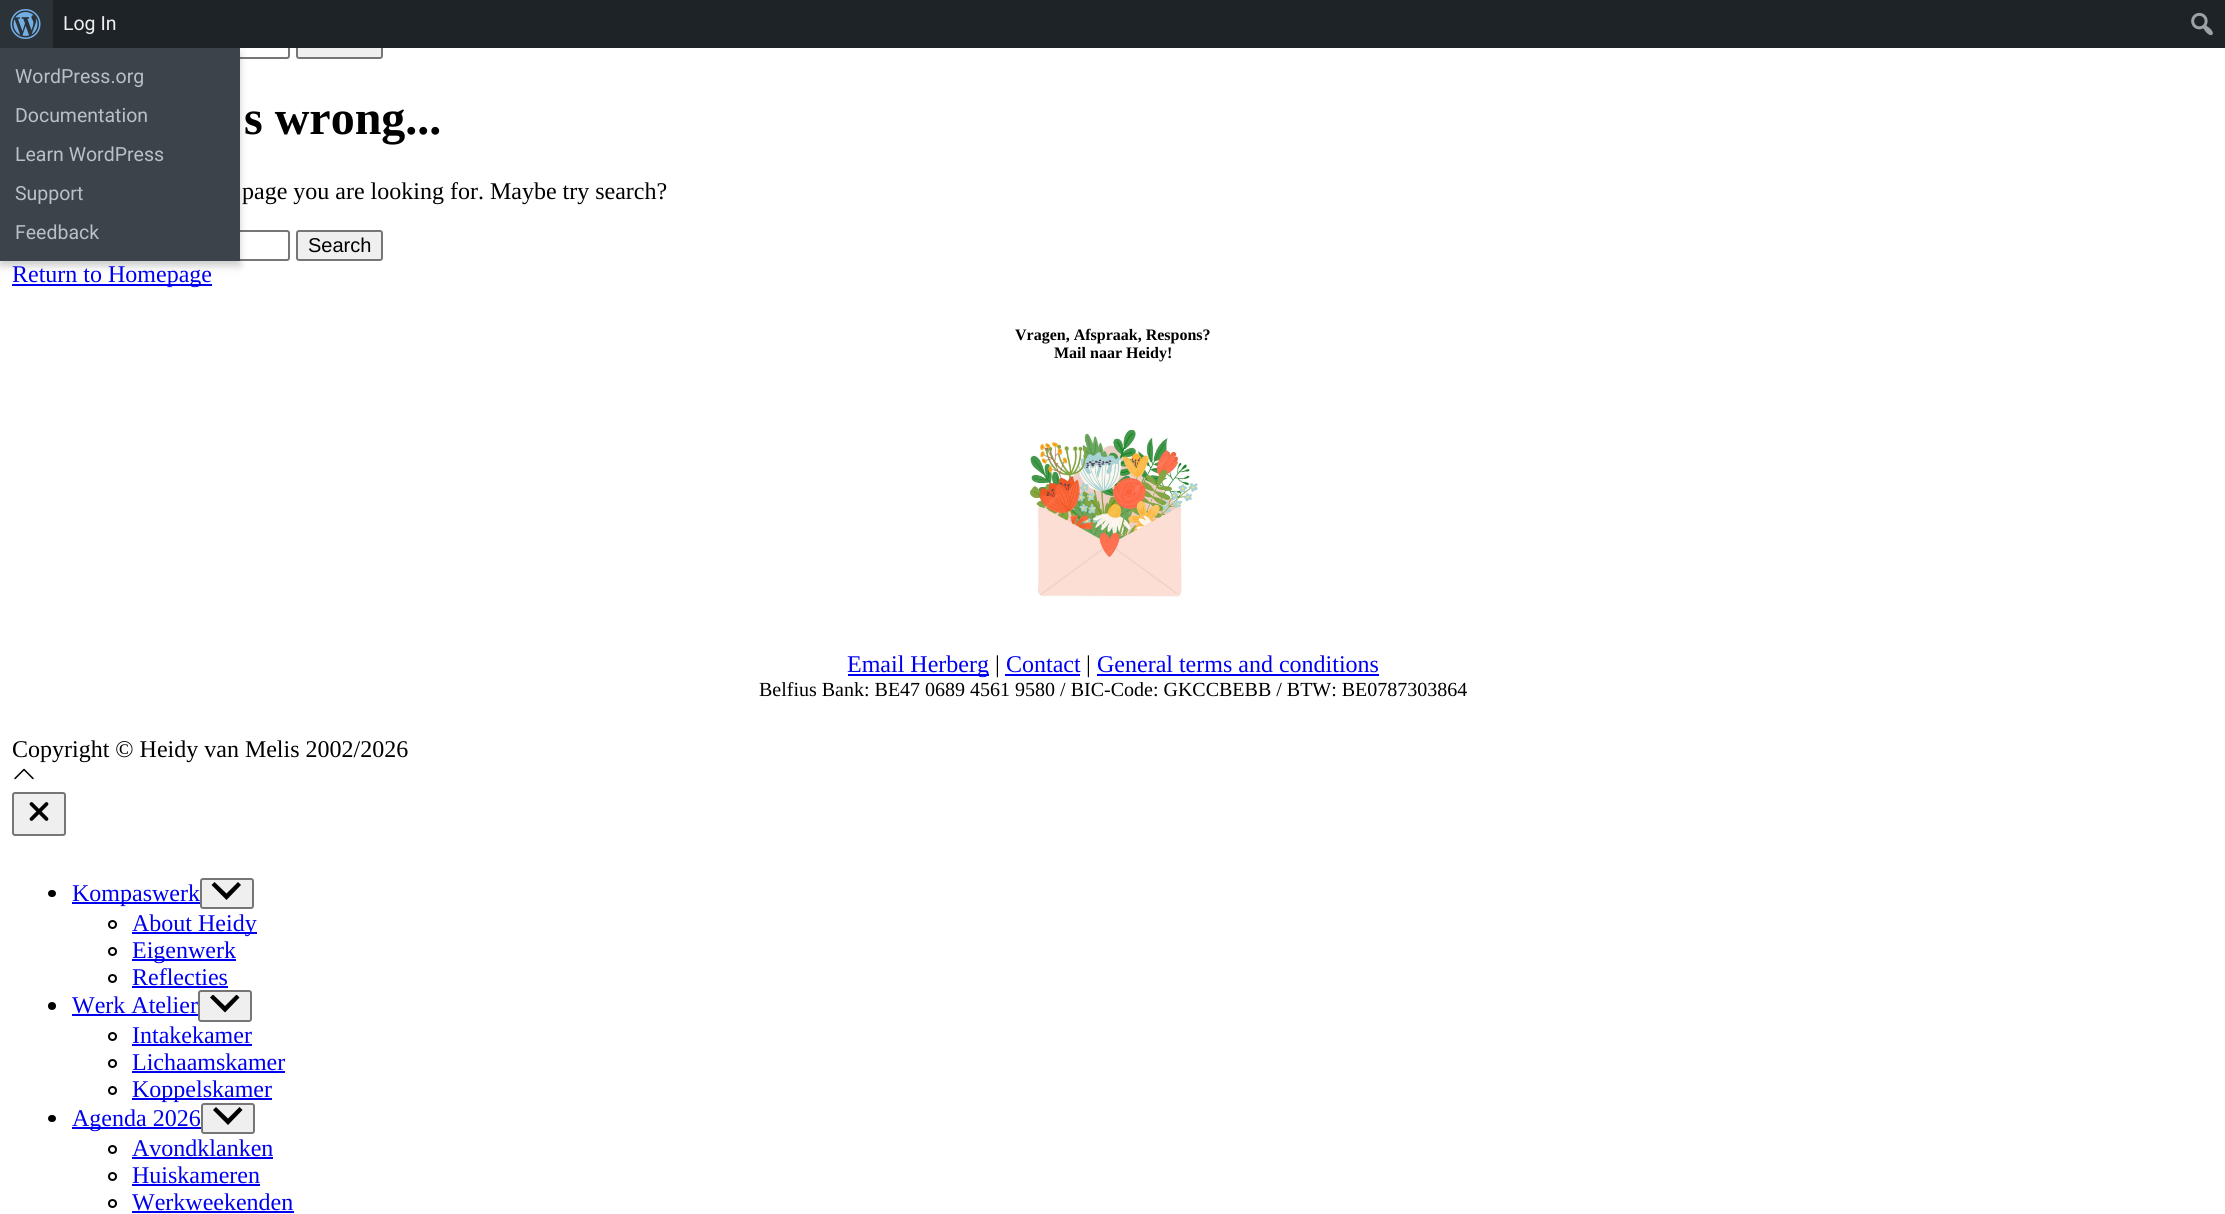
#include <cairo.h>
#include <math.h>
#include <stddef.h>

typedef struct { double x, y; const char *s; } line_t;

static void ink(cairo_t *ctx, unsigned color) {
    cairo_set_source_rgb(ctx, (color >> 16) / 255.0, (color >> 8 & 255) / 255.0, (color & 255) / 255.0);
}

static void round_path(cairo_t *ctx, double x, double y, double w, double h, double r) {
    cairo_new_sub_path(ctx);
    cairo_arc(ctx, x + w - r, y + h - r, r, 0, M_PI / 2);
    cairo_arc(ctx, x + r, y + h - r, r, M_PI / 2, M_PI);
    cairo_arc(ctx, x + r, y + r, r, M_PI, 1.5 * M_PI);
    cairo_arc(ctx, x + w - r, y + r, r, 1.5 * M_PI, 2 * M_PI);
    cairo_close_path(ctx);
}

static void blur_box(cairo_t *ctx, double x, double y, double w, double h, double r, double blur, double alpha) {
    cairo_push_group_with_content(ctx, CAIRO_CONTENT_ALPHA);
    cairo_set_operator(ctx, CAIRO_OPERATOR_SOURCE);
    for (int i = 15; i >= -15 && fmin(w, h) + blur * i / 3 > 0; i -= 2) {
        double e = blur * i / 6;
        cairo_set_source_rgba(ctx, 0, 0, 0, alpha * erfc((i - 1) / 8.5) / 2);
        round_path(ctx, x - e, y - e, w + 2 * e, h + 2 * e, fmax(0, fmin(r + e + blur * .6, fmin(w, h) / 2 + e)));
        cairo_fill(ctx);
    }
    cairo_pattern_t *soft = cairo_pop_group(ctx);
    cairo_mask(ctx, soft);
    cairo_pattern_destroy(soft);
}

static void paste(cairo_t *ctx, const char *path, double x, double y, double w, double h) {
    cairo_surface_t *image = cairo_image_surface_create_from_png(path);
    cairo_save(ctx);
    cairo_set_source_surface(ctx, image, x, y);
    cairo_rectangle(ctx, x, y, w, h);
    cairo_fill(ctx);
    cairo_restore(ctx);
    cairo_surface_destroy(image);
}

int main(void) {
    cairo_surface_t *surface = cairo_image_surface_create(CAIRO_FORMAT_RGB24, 2225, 1214);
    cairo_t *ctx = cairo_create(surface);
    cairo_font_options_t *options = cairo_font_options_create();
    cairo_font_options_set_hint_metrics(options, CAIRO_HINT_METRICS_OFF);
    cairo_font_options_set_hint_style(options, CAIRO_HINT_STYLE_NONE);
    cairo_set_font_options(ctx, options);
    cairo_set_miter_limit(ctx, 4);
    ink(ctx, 0xFFFFFF);
    cairo_paint(ctx);
    round_path(ctx, 13, 28, 276, 30, 2);
    ink(ctx, 0x767676);
    cairo_stroke(ctx);
    ink(ctx, 0xEFEFEF);
    round_path(ctx, 297, 28, 85, 30, 2);
    cairo_fill_preserve(ctx);
    ink(ctx, 0x767676);
    cairo_stroke(ctx);
    ink(ctx, 0x1D2327);
    cairo_rectangle(ctx, 53, 0, 2172, 48);
    cairo_fill(ctx);
    cairo_select_font_face(ctx, "Roboto", CAIRO_FONT_SLANT_NORMAL, CAIRO_FONT_WEIGHT_NORMAL);
    cairo_set_font_size(ctx, 19.5);
    ink(ctx, 0xF0F0F1);
    cairo_move_to(ctx, 63, 30);
    cairo_show_text(ctx, "Log In");
    ink(ctx, 0x2C3338);
    cairo_rectangle(ctx, 0, 0, 53, 48);
    cairo_fill(ctx);
    paste(ctx, "media/1.png", 10, 9, 31, 30);
    round_path(ctx, 13, 231, 276, 29, 2);
    ink(ctx, 0x767676);
    cairo_stroke(ctx);
    ink(ctx, 0x000000);
    blur_box(ctx, 0, 53, 240, 213, 0, 4, 0.2);
    ink(ctx, 0x3C434A);
    cairo_rectangle(ctx, 0, 48, 240, 213);
    cairo_fill(ctx);
    ink(ctx, 0xBAC0C7);
    {
        static const line_t items[] = {
            {15, 83, "WordPress.org"},
            {15, 122, "Documentation"},
            {15, 161, "Learn WordPress"},
            {15, 200, "Support"},
            {15, 239, "Feedback"},
        };
        for (size_t i = 0; i < sizeof items / sizeof *items; i++) {
            cairo_move_to(ctx, items[i].x, items[i].y);
            cairo_show_text(ctx, items[i].s);
        }
    }
    paste(ctx, "media/2.png", 2191, 12, 22, 24);
    cairo_select_font_face(ctx, "Liberation Serif", CAIRO_FONT_SLANT_NORMAL, CAIRO_FONT_WEIGHT_BOLD);
    cairo_set_font_size(ctx, 48);
    ink(ctx, 0x000000);
    cairo_move_to(ctx, 244, 134);
    cairo_show_text(ctx, "s wrong...");
    cairo_select_font_face(ctx, "Liberation Serif", CAIRO_FONT_SLANT_NORMAL, CAIRO_FONT_WEIGHT_NORMAL);
    cairo_set_font_size(ctx, 24);
    cairo_move_to(ctx, 242, 199);
    cairo_show_text(ctx, "page you are looking for. Maybe try search?");
    ink(ctx, 0xEFEFEF);
    round_path(ctx, 297, 231, 85, 29, 2);
    cairo_fill_preserve(ctx);
    ink(ctx, 0x767676);
    cairo_stroke(ctx);
    cairo_select_font_face(ctx, "Liberation Sans", CAIRO_FONT_SLANT_NORMAL, CAIRO_FONT_WEIGHT_NORMAL);
    cairo_set_font_size(ctx, 20);
    ink(ctx, 0x000000);
    cairo_move_to(ctx, 308, 252);
    cairo_show_text(ctx, "Search");
    ink(ctx, 0x0000EE);
    cairo_rectangle(ctx, 12, 284, 200, 2);
    cairo_fill(ctx);
    cairo_select_font_face(ctx, "Liberation Serif", CAIRO_FONT_SLANT_NORMAL, CAIRO_FONT_WEIGHT_NORMAL);
    cairo_set_font_size(ctx, 24);
    cairo_move_to(ctx, 12, 282);
    cairo_show_text(ctx, "Return to Homepage");
    cairo_select_font_face(ctx, "Liberation Serif", CAIRO_FONT_SLANT_NORMAL, CAIRO_FONT_WEIGHT_BOLD);
    cairo_set_font_size(ctx, 16);
    ink(ctx, 0x000000);
    cairo_move_to(ctx, 1015, 340);
    cairo_show_text(ctx, "Vragen, Afspraak, Respons?");
    cairo_move_to(ctx, 1054, 358);
    cairo_show_text(ctx, "Mail naar Heidy!");
    paste(ctx, "media/3.png", 1029, 429, 169, 168);
    ink(ctx, 0x0000EE);
    cairo_rectangle(ctx, 848, 674, 141, 2);
    cairo_fill(ctx);
    cairo_select_font_face(ctx, "Liberation Serif", CAIRO_FONT_SLANT_NORMAL, CAIRO_FONT_WEIGHT_NORMAL);
    cairo_set_font_size(ctx, 24);
    cairo_move_to(ctx, 847, 672);
    cairo_show_text(ctx, "Email Herberg");
    ink(ctx, 0x000000);
    cairo_move_to(ctx, 995, 672);
    cairo_show_text(ctx, "|");
    ink(ctx, 0x0000EE);
    cairo_move_to(ctx, 1006, 672);
    cairo_show_text(ctx, "Contact");
    cairo_rectangle(ctx, 1005, 674, 75, 2);
    cairo_fill(ctx);
    ink(ctx, 0x000000);
    cairo_move_to(ctx, 1086, 672);
    cairo_show_text(ctx, "|");
    ink(ctx, 0x0000EE);
    cairo_move_to(ctx, 1097, 672);
    cairo_show_text(ctx, "General terms and conditions");
    cairo_rectangle(ctx, 1097, 674, 282, 2);
    cairo_fill(ctx);
    cairo_set_font_size(ctx, 20);
    ink(ctx, 0x000000);
    cairo_move_to(ctx, 759, 696);
    cairo_show_text(ctx, "Belfius Bank: BE47 0689 4561 9580 / BIC-Code: GKCCBEBB / BTW: BE0787303864");
    cairo_set_font_size(ctx, 24);
    cairo_move_to(ctx, 12, 757);
    cairo_show_text(ctx, "Copyright © Heidy van Melis 2002/2026");
    paste(ctx, "media/4.png", 14, 768, 20, 12);
    ink(ctx, 0xEFEFEF);
    round_path(ctx, 13, 793, 52, 42, 2);
    cairo_fill_preserve(ctx);
    ink(ctx, 0x767676);
    cairo_stroke(ctx);
    paste(ctx, "media/5.png", 29, 802, 20, 19);
    ink(ctx, 0x000000);
    round_path(ctx, 48, 890, 8, 7, 3.5);
    cairo_fill(ctx);
    ink(ctx, 0x0000EE);
    cairo_rectangle(ctx, 72, 902, 128, 2);
    cairo_fill(ctx);
    cairo_move_to(ctx, 72, 901);
    cairo_show_text(ctx, "Kompaswerk");
    ink(ctx, 0xEFEFEF);
    round_path(ctx, 201, 879, 52, 29, 2);
    cairo_fill_preserve(ctx);
    ink(ctx, 0x767676);
    cairo_stroke(ctx);
    ink(ctx, 0x000000);
    cairo_set_fill_rule(ctx, CAIRO_FILL_RULE_EVEN_ODD);
    cairo_new_path(ctx);
    cairo_move_to(ctx, 226.5, 893.5);
    cairo_line_to(ctx, 238, 882);
    cairo_line_to(ctx, 241, 885);
    cairo_line_to(ctx, 226.5, 900);
    cairo_line_to(ctx, 211.5, 885);
    cairo_line_to(ctx, 214.5, 882);
    cairo_close_path(ctx);
    cairo_fill(ctx);
    cairo_arc(ctx, 112.5, 924.5, 3.5, 0, 2 * M_PI);
    cairo_stroke(ctx);
    ink(ctx, 0x0000EE);
    cairo_rectangle(ctx, 132, 932, 125, 2);
    cairo_fill(ctx);
    cairo_move_to(ctx, 132, 931);
    cairo_show_text(ctx, "About Heidy");
    cairo_new_path(ctx);
    cairo_arc(ctx, 112.5, 951.5, 3.5, 0, 2 * M_PI);
    ink(ctx, 0x000000);
    cairo_stroke(ctx);
    ink(ctx, 0x0000EE);
    cairo_rectangle(ctx, 132, 959, 104, 2);
    cairo_fill(ctx);
    cairo_move_to(ctx, 132, 958);
    cairo_show_text(ctx, "Eigenwerk");
    cairo_new_path(ctx);
    cairo_arc(ctx, 112.5, 978.5, 3.5, 0, 2 * M_PI);
    ink(ctx, 0x000000);
    cairo_stroke(ctx);
    ink(ctx, 0x0000EE);
    cairo_move_to(ctx, 132, 985);
    cairo_show_text(ctx, "Reflecties");
    cairo_rectangle(ctx, 132, 986, 96, 2);
    cairo_fill(ctx);
    ink(ctx, 0x000000);
    cairo_arc(ctx, 52, 1006, 4, 0, 2 * M_PI);
    cairo_fill(ctx);
    ink(ctx, 0x0000EE);
    cairo_move_to(ctx, 72, 1013);
    cairo_show_text(ctx, "Werk Atelier");
    cairo_rectangle(ctx, 72, 1014, 126, 2);
    cairo_fill(ctx);
    ink(ctx, 0xEFEFEF);
    round_path(ctx, 199, 991, 52, 30, 2);
    cairo_fill_preserve(ctx);
    ink(ctx, 0x767676);
    cairo_stroke(ctx);
    cairo_save(ctx);
    cairo_set_fill_rule(ctx, CAIRO_FILL_RULE_WINDING);
    cairo_rectangle(ctx, 210, 995, 30, 18);
    cairo_clip(ctx);
    ink(ctx, 0x000000);
    cairo_set_fill_rule(ctx, CAIRO_FILL_RULE_EVEN_ODD);
    cairo_new_path(ctx);
    cairo_move_to(ctx, 225, 1006);
    cairo_line_to(ctx, 236.5, 994.5);
    cairo_line_to(ctx, 239.5, 997.5);
    cairo_line_to(ctx, 225, 1012.5);
    cairo_line_to(ctx, 210, 997.5);
    cairo_line_to(ctx, 213, 994.5);
    cairo_close_path(ctx);
    cairo_fill(ctx);
    cairo_restore(ctx);
    cairo_arc(ctx, 112.5, 1036.5, 3.5, 0, 2 * M_PI);
    ink(ctx, 0x000000);
    cairo_stroke(ctx);
    ink(ctx, 0x0000EE);
    cairo_move_to(ctx, 132, 1043);
    cairo_show_text(ctx, "Intakekamer");
    cairo_rectangle(ctx, 132, 1044, 120, 2);
    cairo_fill(ctx);
    cairo_arc(ctx, 112.5, 1063.5, 3.5, 0, 2 * M_PI);
    ink(ctx, 0x000000);
    cairo_stroke(ctx);
    ink(ctx, 0x0000EE);
    cairo_move_to(ctx, 132, 1070);
    cairo_show_text(ctx, "Lichaamskamer");
    cairo_rectangle(ctx, 132, 1071, 153, 2);
    cairo_fill(ctx);
    cairo_arc(ctx, 112.5, 1090.5, 3.5, 0, 2 * M_PI);
    ink(ctx, 0x000000);
    cairo_stroke(ctx);
    ink(ctx, 0x0000EE);
    cairo_rectangle(ctx, 132, 1098, 140, 2);
    cairo_fill(ctx);
    cairo_move_to(ctx, 132, 1097);
    cairo_show_text(ctx, "Koppelskamer");
    ink(ctx, 0x000000);
    round_path(ctx, 48, 1115, 8, 7, 3.5);
    cairo_fill(ctx);
    ink(ctx, 0x0000EE);
    cairo_rectangle(ctx, 72, 1127, 129, 2);
    cairo_fill(ctx);
    cairo_move_to(ctx, 72, 1126);
    cairo_show_text(ctx, "Agenda 2026");
    ink(ctx, 0xEFEFEF);
    round_path(ctx, 202, 1104, 52, 29, 2);
    cairo_fill_preserve(ctx);
    ink(ctx, 0x767676);
    cairo_stroke(ctx);
    ink(ctx, 0x000000);
    cairo_new_path(ctx);
    cairo_move_to(ctx, 228, 1118.5);
    cairo_line_to(ctx, 239.5, 1107);
    cairo_line_to(ctx, 242.5, 1110);
    cairo_line_to(ctx, 228, 1125);
    cairo_line_to(ctx, 213, 1110);
    cairo_line_to(ctx, 216, 1107);
    cairo_close_path(ctx);
    cairo_fill(ctx);
    cairo_arc(ctx, 112.5, 1149.5, 3.5, 0, 2 * M_PI);
    cairo_stroke(ctx);
    ink(ctx, 0x0000EE);
    cairo_move_to(ctx, 132, 1156);
    cairo_show_text(ctx, "Avondklanken");
    cairo_rectangle(ctx, 132, 1157, 141, 2);
    cairo_fill(ctx);
    cairo_arc(ctx, 112.5, 1176.5, 3.5, 0, 2 * M_PI);
    ink(ctx, 0x000000);
    cairo_stroke(ctx);
    ink(ctx, 0x0000EE);
    cairo_move_to(ctx, 132, 1183);
    cairo_show_text(ctx, "Huiskameren");
    cairo_rectangle(ctx, 132, 1184, 128, 2);
    cairo_fill(ctx);
    cairo_arc(ctx, 112.5, 1203.5, 3.5, 0, 2 * M_PI);
    ink(ctx, 0x000000);
    cairo_stroke(ctx);
    ink(ctx, 0x0000EE);
    cairo_move_to(ctx, 132, 1210);
    cairo_show_text(ctx, "Werkweekenden");
    cairo_rectangle(ctx, 132, 1211, 162, 2);
    cairo_fill(ctx);
    cairo_surface_write_to_png(surface, "image.png");
    cairo_font_options_destroy(options);
    cairo_destroy(ctx);
    cairo_surface_destroy(surface);
    return 0;
}
